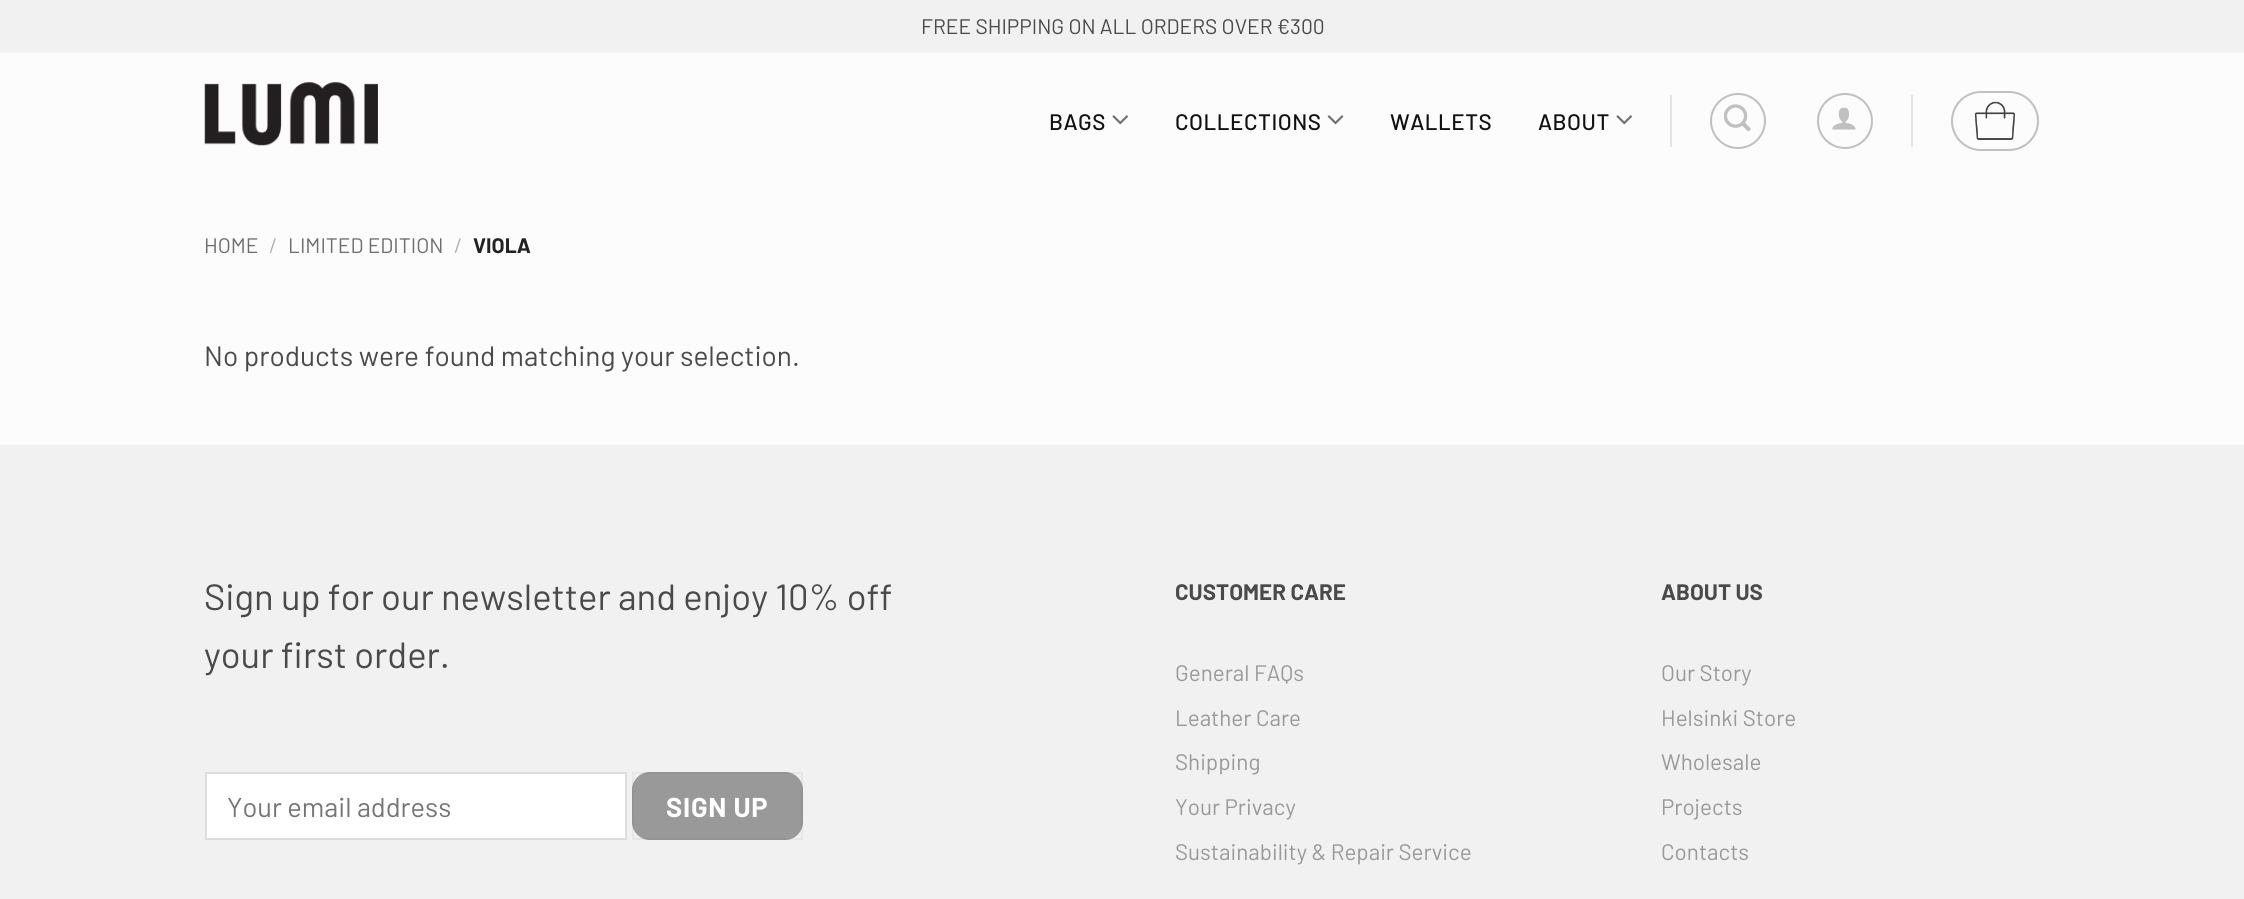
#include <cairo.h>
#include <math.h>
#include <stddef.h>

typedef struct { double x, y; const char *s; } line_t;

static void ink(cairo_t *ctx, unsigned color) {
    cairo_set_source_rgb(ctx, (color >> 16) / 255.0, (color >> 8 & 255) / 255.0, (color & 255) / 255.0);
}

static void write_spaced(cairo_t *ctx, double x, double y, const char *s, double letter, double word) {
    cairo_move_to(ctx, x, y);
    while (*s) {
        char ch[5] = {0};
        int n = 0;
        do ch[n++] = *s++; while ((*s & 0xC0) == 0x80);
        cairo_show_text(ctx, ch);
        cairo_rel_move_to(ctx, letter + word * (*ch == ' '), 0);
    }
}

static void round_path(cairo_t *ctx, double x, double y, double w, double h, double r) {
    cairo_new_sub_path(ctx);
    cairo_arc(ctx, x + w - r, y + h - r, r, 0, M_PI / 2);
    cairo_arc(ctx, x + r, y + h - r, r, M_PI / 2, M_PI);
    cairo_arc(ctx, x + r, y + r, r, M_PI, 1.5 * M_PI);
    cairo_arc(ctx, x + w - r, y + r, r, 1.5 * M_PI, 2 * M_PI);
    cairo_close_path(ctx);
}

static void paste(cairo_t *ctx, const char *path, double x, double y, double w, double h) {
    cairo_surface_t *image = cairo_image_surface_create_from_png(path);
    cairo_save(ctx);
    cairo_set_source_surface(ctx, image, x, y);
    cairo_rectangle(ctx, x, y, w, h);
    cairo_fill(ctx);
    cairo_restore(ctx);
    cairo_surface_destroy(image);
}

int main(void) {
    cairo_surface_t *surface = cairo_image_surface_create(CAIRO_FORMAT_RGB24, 2244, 899);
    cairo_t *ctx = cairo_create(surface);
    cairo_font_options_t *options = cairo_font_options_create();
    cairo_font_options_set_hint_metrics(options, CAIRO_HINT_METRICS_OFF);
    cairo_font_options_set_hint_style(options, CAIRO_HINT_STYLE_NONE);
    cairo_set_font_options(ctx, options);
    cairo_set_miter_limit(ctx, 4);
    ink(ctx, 0xFCFCFC);
    cairo_paint(ctx);
    ink(ctx, 0xF1F1F1);
    cairo_rectangle(ctx, 0, 0, 2244, 53);
    cairo_fill(ctx);
    cairo_select_font_face(ctx, "Barlow", CAIRO_FONT_SLANT_NORMAL, CAIRO_FONT_WEIGHT_NORMAL);
    cairo_set_font_size(ctx, 21);
    ink(ctx, 0x4A4A4A);
    cairo_move_to(ctx, 921, 34);
    cairo_show_text(ctx, "FREE SHIPPING ON ALL ORDERS OVER €300");
    paste(ctx, "media/1.png", 204, 82, 174, 64);
    cairo_select_font_face(ctx, "Barlow Medium", CAIRO_FONT_SLANT_NORMAL, CAIRO_FONT_WEIGHT_NORMAL);
    cairo_set_font_size(ctx, 22.4);
    ink(ctx, 0x111111);
    write_spaced(ctx, 1049, 130, "BAGS", 0.5, 0);
    paste(ctx, "media/2.png", 1112, 115, 16, 10);
    write_spaced(ctx, 1175, 130, "COLLECTIONS", 0.5, 0);
    paste(ctx, "media/3.png", 1327, 115, 17, 10);
    write_spaced(ctx, 1390, 130, "WALLETS", 0.5, 0);
    write_spaced(ctx, 1538, 130, "ABOUT", 0.5, 0);
    paste(ctx, "media/2.png", 1616, 115, 16, 10);
    ink(ctx, 0xE3E3E3);
    cairo_rectangle(ctx, 1670, 95, 2, 52);
    cairo_fill(ctx);
    cairo_arc(ctx, 1738, 121, 27, 0, 2 * M_PI);
    ink(ctx, 0xC0C0C0);
    cairo_stroke(ctx);
    paste(ctx, "media/4.png", 1723, 104, 28, 28);
    cairo_arc(ctx, 1845, 121, 27, 0, 2 * M_PI);
    cairo_stroke(ctx);
    paste(ctx, "media/5.png", 1832, 107, 24, 23);
    ink(ctx, 0xE3E3E3);
    cairo_rectangle(ctx, 1911, 95, 2, 52);
    cairo_fill(ctx);
    round_path(ctx, 1952, 92, 86, 58, 29);
    ink(ctx, 0xC0C0C0);
    cairo_stroke(ctx);
    paste(ctx, "media/6.png", 1974, 101, 41, 39);
    cairo_select_font_face(ctx, "Barlow", CAIRO_FONT_SLANT_NORMAL, CAIRO_FONT_WEIGHT_NORMAL);
    cairo_set_font_size(ctx, 21);
    ink(ctx, 0x6E6E6E);
    cairo_move_to(ctx, 204, 253);
    cairo_show_text(ctx, "HOME");
    ink(ctx, 0xB0B0B0);
    cairo_move_to(ctx, 269, 253);
    cairo_show_text(ctx, "/");
    ink(ctx, 0x6E6E6E);
    cairo_move_to(ctx, 288, 253);
    cairo_show_text(ctx, "LIMITED EDITION");
    ink(ctx, 0xB0B0B0);
    cairo_move_to(ctx, 454, 253);
    cairo_show_text(ctx, "/");
    cairo_select_font_face(ctx, "Barlow", CAIRO_FONT_SLANT_NORMAL, CAIRO_FONT_WEIGHT_BOLD);
    ink(ctx, 0x222222);
    cairo_move_to(ctx, 473, 253);
    cairo_show_text(ctx, "VIOLA");
    cairo_select_font_face(ctx, "Barlow", CAIRO_FONT_SLANT_NORMAL, CAIRO_FONT_WEIGHT_NORMAL);
    cairo_set_font_size(ctx, 28);
    ink(ctx, 0x4A4A4A);
    cairo_move_to(ctx, 204, 366);
    cairo_show_text(ctx, "No products were found matching your selection.");
    ink(ctx, 0xF1F1F1);
    cairo_rectangle(ctx, 0, 445, 2244, 454);
    cairo_fill(ctx);
    cairo_set_font_size(ctx, 36.4);
    ink(ctx, 0x4A4A4A);
    cairo_move_to(ctx, 204, 610);
    cairo_show_text(ctx, "Sign up for our newsletter and enjoy 10% off");
    cairo_move_to(ctx, 204, 668);
    cairo_show_text(ctx, "your first order.");
    ink(ctx, 0xFFFFFF);
    cairo_rectangle(ctx, 206, 773, 420, 66);
    cairo_fill_preserve(ctx);
    ink(ctx, 0xDDDDDD);
    cairo_stroke(ctx);
    cairo_set_font_size(ctx, 27.25);
    ink(ctx, 0x757575);
    cairo_move_to(ctx, 227, 817);
    cairo_show_text(ctx, "Your email address");
    ink(ctx, 0x999999);
    round_path(ctx, 632, 772, 171, 68, 18);
    cairo_fill(ctx);
    cairo_rectangle(ctx, 633, 773, 169, 66);
    cairo_set_source_rgba(ctx, 0, 0, 0, 0.05);
    cairo_stroke(ctx);
    cairo_select_font_face(ctx, "Barlow", CAIRO_FONT_SLANT_NORMAL, CAIRO_FONT_WEIGHT_BOLD);
    ink(ctx, 0xFFFFFF);
    write_spaced(ctx, 666, 817, "SIGN UP", 0.75, 0);
    cairo_set_font_size(ctx, 22.4);
    ink(ctx, 0x4A4A4A);
    cairo_move_to(ctx, 1175, 600);
    cairo_show_text(ctx, "CUSTOMER CARE");
    cairo_select_font_face(ctx, "Barlow", CAIRO_FONT_SLANT_NORMAL, CAIRO_FONT_WEIGHT_NORMAL);
    ink(ctx, 0x999999);
    {
        static const line_t items[] = {
            {1175, 681, "General FAQs"},
            {1175, 726, "Leather Care"},
            {1175, 770, "Shipping"},
            {1175, 815, "Your Privacy"},
            {1175, 860, "Sustainability & Repair Service"},
        };
        for (size_t i = 0; i < sizeof items / sizeof *items; i++) {
            cairo_move_to(ctx, items[i].x, items[i].y);
            cairo_show_text(ctx, items[i].s);
        }
    }
    cairo_select_font_face(ctx, "Barlow", CAIRO_FONT_SLANT_NORMAL, CAIRO_FONT_WEIGHT_BOLD);
    ink(ctx, 0x4A4A4A);
    cairo_move_to(ctx, 1661, 600);
    cairo_show_text(ctx, "ABOUT US");
    cairo_select_font_face(ctx, "Barlow", CAIRO_FONT_SLANT_NORMAL, CAIRO_FONT_WEIGHT_NORMAL);
    ink(ctx, 0x999999);
    {
        static const line_t items[] = {
            {1661, 681, "Our Story"},
            {1661, 726, "Helsinki Store"},
            {1661, 770, "Wholesale"},
            {1661, 815, "Projects"},
            {1661, 860, "Contacts"},
        };
        for (size_t i = 0; i < sizeof items / sizeof *items; i++) {
            cairo_move_to(ctx, items[i].x, items[i].y);
            cairo_show_text(ctx, items[i].s);
        }
    }
    cairo_surface_write_to_png(surface, "image.png");
    cairo_font_options_destroy(options);
    cairo_destroy(ctx);
    cairo_surface_destroy(surface);
    return 0;
}
